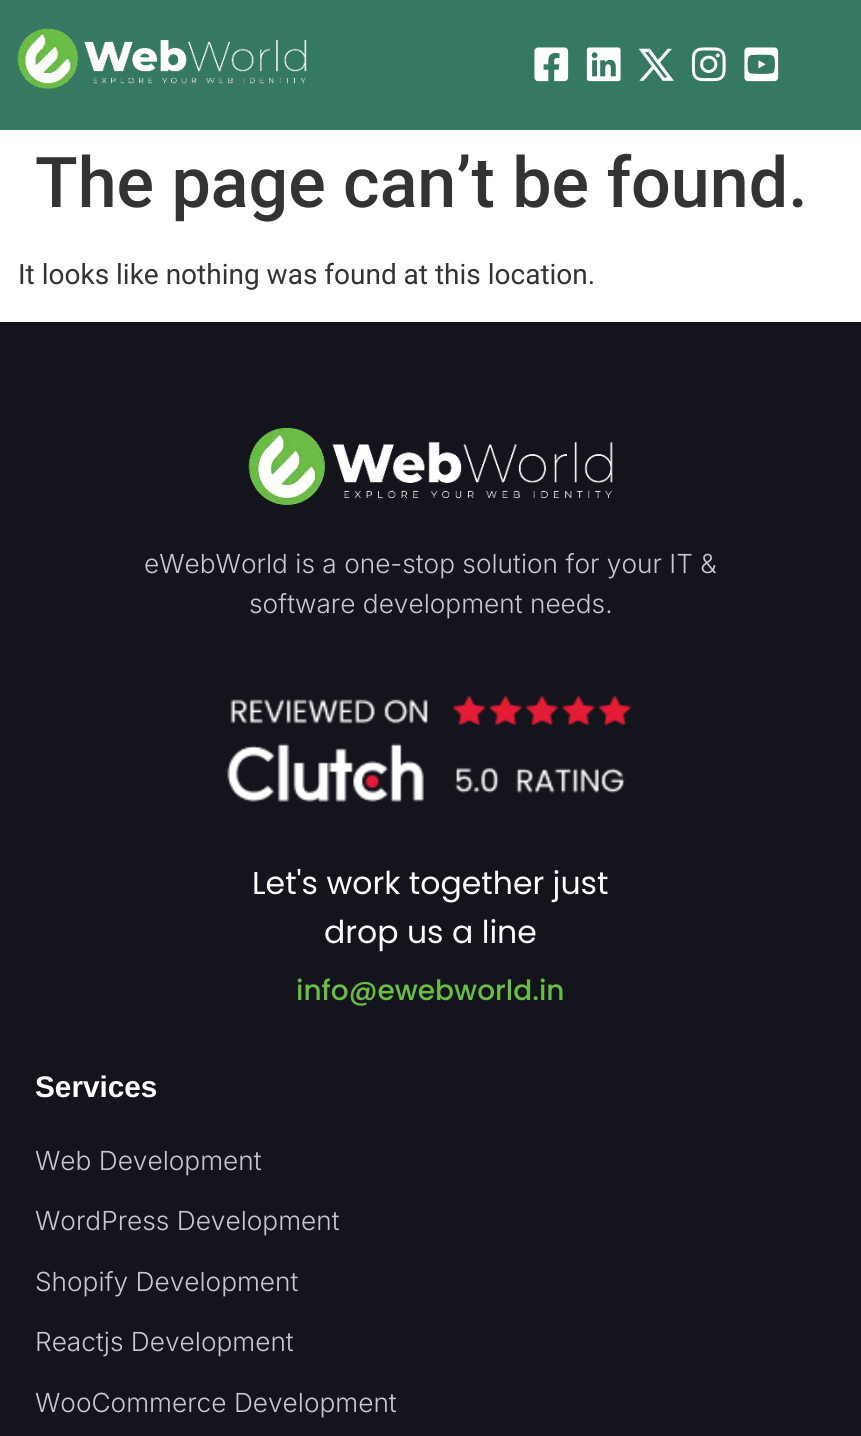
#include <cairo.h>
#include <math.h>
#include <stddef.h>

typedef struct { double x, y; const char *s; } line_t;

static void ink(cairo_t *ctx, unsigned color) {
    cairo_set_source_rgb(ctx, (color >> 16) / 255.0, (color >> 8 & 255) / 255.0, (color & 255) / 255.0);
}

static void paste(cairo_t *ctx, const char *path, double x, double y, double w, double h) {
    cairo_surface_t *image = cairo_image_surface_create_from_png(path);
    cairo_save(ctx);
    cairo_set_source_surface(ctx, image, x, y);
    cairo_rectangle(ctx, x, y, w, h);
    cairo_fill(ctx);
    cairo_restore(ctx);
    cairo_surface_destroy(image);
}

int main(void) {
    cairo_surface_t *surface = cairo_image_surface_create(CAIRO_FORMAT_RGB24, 861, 1436);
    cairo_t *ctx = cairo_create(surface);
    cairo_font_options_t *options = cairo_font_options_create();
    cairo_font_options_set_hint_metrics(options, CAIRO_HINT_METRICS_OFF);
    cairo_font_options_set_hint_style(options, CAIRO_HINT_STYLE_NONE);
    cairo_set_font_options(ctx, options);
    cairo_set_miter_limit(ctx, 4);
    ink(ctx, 0xFFFFFF);
    cairo_paint(ctx);
    ink(ctx, 0x357960);
    cairo_rectangle(ctx, 0, 0, 861, 130);
    cairo_fill(ctx);
    paste(ctx, "media/1.png", 17, 28, 290, 61);
    paste(ctx, "media/2.png", 534, 47, 35, 35);
    paste(ctx, "media/3.png", 586, 47, 35, 35);
    paste(ctx, "media/4.png", 638, 48, 36, 33);
    paste(ctx, "media/5.png", 691, 47, 35, 35);
    paste(ctx, "media/6.png", 744, 47, 35, 35);
    cairo_select_font_face(ctx, "Roboto Medium", CAIRO_FONT_SLANT_NORMAL, CAIRO_FONT_WEIGHT_NORMAL);
    cairo_set_font_size(ctx, 70);
    ink(ctx, 0x333333);
    cairo_move_to(ctx, 35, 207);
    cairo_show_text(ctx, "The page can’t be found.");
    cairo_select_font_face(ctx, "Roboto", CAIRO_FONT_SLANT_NORMAL, CAIRO_FONT_WEIGHT_NORMAL);
    cairo_set_font_size(ctx, 28);
    cairo_move_to(ctx, 18, 284);
    cairo_show_text(ctx, "It looks like nothing was found at this location.");
    ink(ctx, 0x14141C);
    cairo_rectangle(ctx, 0, 322, 861, 1114);
    cairo_fill(ctx);
    paste(ctx, "media/7.png", 248, 427, 365, 78);
    cairo_select_font_face(ctx, "Inter Light", CAIRO_FONT_SLANT_NORMAL, CAIRO_FONT_WEIGHT_NORMAL);
    cairo_set_font_size(ctx, 26.25);
    ink(ctx, 0xC8C8D4);
    cairo_move_to(ctx, 144, 573);
    cairo_show_text(ctx, "eWebWorld is a one-stop solution for your IT &");
    cairo_move_to(ctx, 249, 613);
    cairo_show_text(ctx, "software development needs.");
    paste(ctx, "media/8.png", 227, 695, 405, 107);
    cairo_select_font_face(ctx, "Poppins", CAIRO_FONT_SLANT_NORMAL, CAIRO_FONT_WEIGHT_NORMAL);
    cairo_set_font_size(ctx, 31.5);
    ink(ctx, 0xFFFFFF);
    cairo_move_to(ctx, 252, 894);
    cairo_show_text(ctx, "Let's work together just");
    cairo_move_to(ctx, 324, 943);
    cairo_show_text(ctx, "drop us a line");
    cairo_select_font_face(ctx, "Poppins Medium", CAIRO_FONT_SLANT_NORMAL, CAIRO_FONT_WEIGHT_NORMAL);
    cairo_set_font_size(ctx, 28);
    ink(ctx, 0x69BD46);
    cairo_move_to(ctx, 296, 1000);
    cairo_show_text(ctx, "info@ewebworld.in");
    cairo_select_font_face(ctx, "Liberation Sans", CAIRO_FONT_SLANT_NORMAL, CAIRO_FONT_WEIGHT_BOLD);
    cairo_set_font_size(ctx, 29.75);
    ink(ctx, 0xFFFFFF);
    cairo_move_to(ctx, 35, 1097);
    cairo_show_text(ctx, "Services");
    cairo_select_font_face(ctx, "Inter Light", CAIRO_FONT_SLANT_NORMAL, CAIRO_FONT_WEIGHT_NORMAL);
    cairo_set_font_size(ctx, 26.25);
    ink(ctx, 0xC8C8D4);
    {
        static const line_t items[] = {
            {35, 1170, "Web Development"},
            {35, 1230, "WordPress Development"},
            {35, 1291, "Shopify Development"},
            {35, 1351, "Reactjs Development"},
            {35, 1412, "WooCommerce Development"},
        };
        for (size_t i = 0; i < sizeof items / sizeof *items; i++) {
            cairo_move_to(ctx, items[i].x, items[i].y);
            cairo_show_text(ctx, items[i].s);
        }
    }
    cairo_surface_write_to_png(surface, "image.png");
    cairo_font_options_destroy(options);
    cairo_destroy(ctx);
    cairo_surface_destroy(surface);
    return 0;
}
